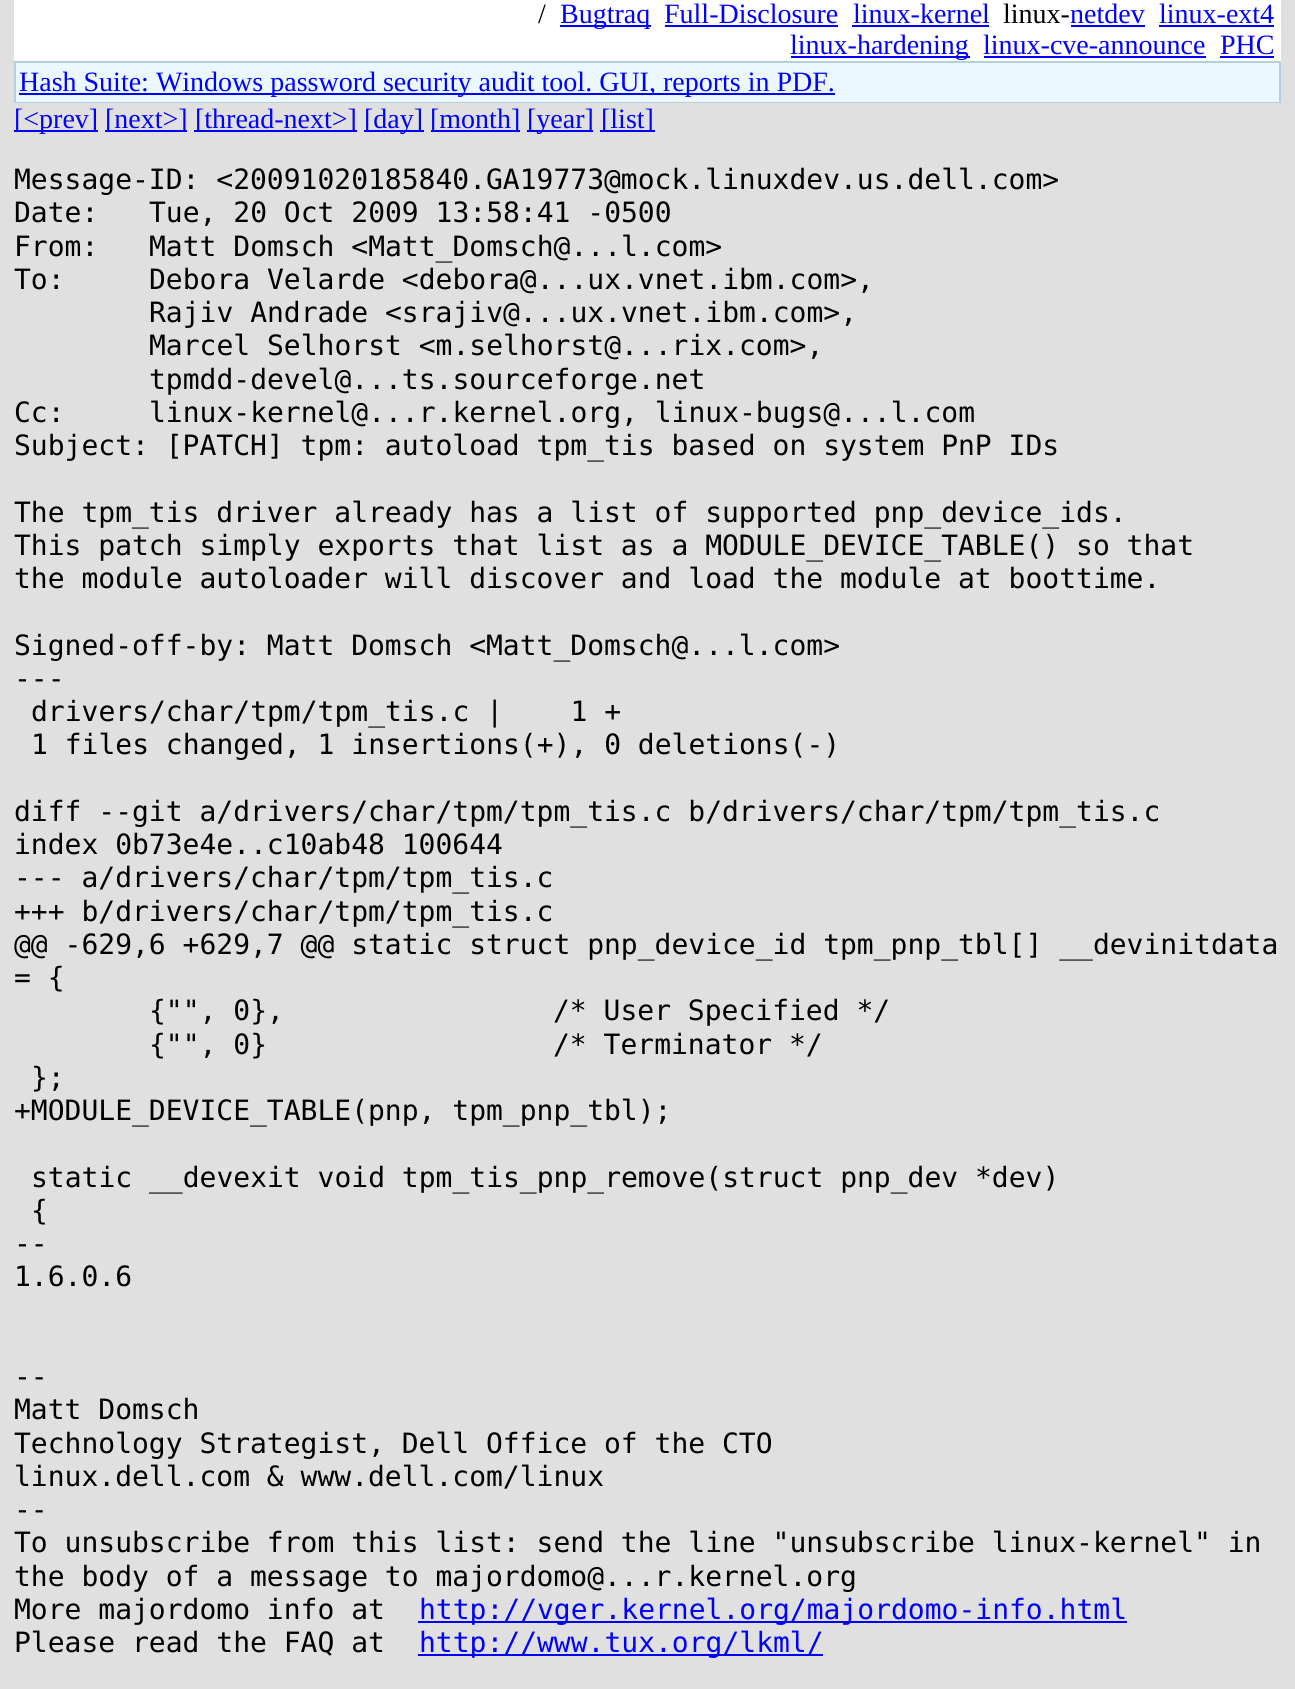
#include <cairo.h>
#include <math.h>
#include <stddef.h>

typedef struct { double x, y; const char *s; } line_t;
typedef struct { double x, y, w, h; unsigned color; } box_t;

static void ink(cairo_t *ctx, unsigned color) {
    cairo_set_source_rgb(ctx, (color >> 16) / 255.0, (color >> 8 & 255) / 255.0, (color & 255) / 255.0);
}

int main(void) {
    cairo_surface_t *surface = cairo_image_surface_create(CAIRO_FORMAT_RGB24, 1295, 1689);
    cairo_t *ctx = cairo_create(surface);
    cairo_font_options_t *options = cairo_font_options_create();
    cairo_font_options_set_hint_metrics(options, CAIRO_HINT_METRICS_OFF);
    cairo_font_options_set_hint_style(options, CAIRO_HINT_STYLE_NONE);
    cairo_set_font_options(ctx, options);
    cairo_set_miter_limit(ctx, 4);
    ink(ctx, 0xE0E0E0);
    cairo_paint(ctx);
    ink(ctx, 0xFFFFFF);
    cairo_rectangle(ctx, 14, 0, 1267, 61);
    cairo_fill(ctx);
    cairo_select_font_face(ctx, "Liberation Serif", CAIRO_FONT_SLANT_NORMAL, CAIRO_FONT_WEIGHT_NORMAL);
    cairo_set_font_size(ctx, 28);
    ink(ctx, 0x000000);
    cairo_move_to(ctx, 538, 23);
    cairo_show_text(ctx, "/");
    ink(ctx, 0x0000FF);
    cairo_rectangle(ctx, 560, 25, 91, 2);
    cairo_fill(ctx);
    cairo_move_to(ctx, 560, 23);
    cairo_show_text(ctx, "Bugtraq");
    cairo_move_to(ctx, 664, 23);
    cairo_show_text(ctx, "Full-Disclosure");
    cairo_rectangle(ctx, 665, 25, 173, 2);
    cairo_fill(ctx);
    cairo_move_to(ctx, 853, 23);
    cairo_show_text(ctx, "linux-kernel");
    cairo_rectangle(ctx, 852, 25, 137, 2);
    cairo_fill(ctx);
    ink(ctx, 0x000000);
    cairo_move_to(ctx, 1003, 23);
    cairo_show_text(ctx, "linux-");
    ink(ctx, 0x0000FF);
    cairo_move_to(ctx, 1070, 23);
    cairo_show_text(ctx, "netdev");
    cairo_rectangle(ctx, 1071, 25, 74, 2);
    cairo_fill(ctx);
    cairo_move_to(ctx, 1159, 23);
    cairo_show_text(ctx, "linux-ext4");
    cairo_rectangle(ctx, 1159, 25, 115, 2);
    cairo_fill(ctx);
    cairo_rectangle(ctx, 791, 56, 179, 2);
    cairo_fill(ctx);
    cairo_move_to(ctx, 790, 54);
    cairo_show_text(ctx, "linux-hardening");
    cairo_move_to(ctx, 983, 54);
    cairo_show_text(ctx, "linux-cve-announce");
    cairo_rectangle(ctx, 984, 56, 222, 2);
    cairo_fill(ctx);
    cairo_move_to(ctx, 1220, 54);
    cairo_show_text(ctx, "PHC");
    {
        static const box_t items[] = {
            {1220, 56, 54, 2, 0x0000FF},
            {14, 61, 1267, 42, 0xB4D0DC},
            {16, 63, 1263, 39, 0xECF8FF},
            {19, 93, 816, 2, 0x0000FF},
        };
        for (size_t i = 0; i < sizeof items / sizeof *items; i++) {
            ink(ctx, items[i].color);
            cairo_rectangle(ctx, items[i].x, items[i].y, items[i].w, items[i].h);
            cairo_fill(ctx);
        }
    }
    cairo_move_to(ctx, 19, 91);
    cairo_show_text(ctx, "Hash Suite: Windows password security audit tool. GUI, reports in PDF.");
    cairo_rectangle(ctx, 14, 130, 84, 2);
    cairo_fill(ctx);
    cairo_move_to(ctx, 14, 128);
    cairo_show_text(ctx, "[<prev]");
    cairo_rectangle(ctx, 105, 130, 82, 2);
    cairo_fill(ctx);
    cairo_move_to(ctx, 105, 128);
    cairo_show_text(ctx, "[next>]");
    cairo_rectangle(ctx, 194, 130, 163, 2);
    cairo_fill(ctx);
    cairo_move_to(ctx, 195, 128);
    cairo_show_text(ctx, "[thread-next>]");
    cairo_rectangle(ctx, 364, 130, 60, 2);
    cairo_fill(ctx);
    cairo_move_to(ctx, 364, 128);
    cairo_show_text(ctx, "[day]");
    cairo_rectangle(ctx, 431, 130, 89, 2);
    cairo_fill(ctx);
    cairo_move_to(ctx, 430, 128);
    cairo_show_text(ctx, "[month]");
    cairo_rectangle(ctx, 527, 130, 66, 2);
    cairo_fill(ctx);
    cairo_move_to(ctx, 527, 128);
    cairo_show_text(ctx, "[year]");
    cairo_rectangle(ctx, 600, 130, 55, 2);
    cairo_fill(ctx);
    cairo_move_to(ctx, 601, 128);
    cairo_show_text(ctx, "[list]");
    cairo_select_font_face(ctx, "DejaVu Sans Mono", CAIRO_FONT_SLANT_NORMAL, CAIRO_FONT_WEIGHT_NORMAL);
    ink(ctx, 0x000000);
    {
        static const line_t items[] = {
            {14, 189, "Message-ID: <20091020185840.GA19773@mock.linuxdev.us.dell.com>"},
            {14, 222, "Date:"},
            {149, 222, "Tue, 20 Oct 2009 13:58:41 -0500"},
            {14, 256, "From:"},
            {149, 256, "Matt Domsch <Matt_Domsch@...l.com>"},
            {14, 289, "To:"},
            {149, 289, "Debora Velarde <debora@...ux.vnet.ibm.com>,"},
            {149, 322, "Rajiv Andrade <srajiv@...ux.vnet.ibm.com>,"},
            {149, 355, "Marcel Selhorst <m.selhorst@...rix.com>,"},
            {149, 389, "tpmdd-devel@...ts.sourceforge.net"},
            {14, 422, "Cc:"},
            {149, 422, "linux-kernel@...r.kernel.org, linux-bugs@...l.com"},
            {14, 455, "Subject: [PATCH] tpm: autoload tpm_tis based on system PnP IDs"},
            {14, 522, "The tpm_tis driver already has a list of supported pnp_device_ids."},
            {14, 555, "This patch simply exports that list as a MODULE_DEVICE_TABLE() so that"},
            {14, 588, "the module autoloader will discover and load the module at boottime."},
            {14, 655, "Signed-off-by: Matt Domsch <Matt_Domsch@...l.com>"},
            {14, 688, "---"},
            {31, 721, "drivers/char/tpm/tpm_tis.c |    1 +"},
            {31, 754, "1 files changed, 1 insertions(+), 0 deletions(-)"},
            {14, 821, "diff --git a/drivers/char/tpm/tpm_tis.c b/drivers/char/tpm/tpm_tis.c"},
            {14, 854, "index 0b73e4e..c10ab48 100644"},
            {14, 887, "--- a/drivers/char/tpm/tpm_tis.c"},
            {14, 921, "+++ b/drivers/char/tpm/tpm_tis.c"},
            {14, 954, "@@ -629,6 +629,7 @@ static struct pnp_device_id tpm_pnp_tbl[] __devinitdata"},
            {14, 987, "= {"},
            {149, 1020, "{\"\", 0},"},
            {553, 1020, "/* User Specified */"},
            {149, 1054, "{\"\", 0}"},
            {553, 1054, "/* Terminator */"},
            {31, 1087, "};"},
            {14, 1120, "+MODULE_DEVICE_TABLE(pnp, tpm_pnp_tbl);"},
            {31, 1187, "static __devexit void tpm_tis_pnp_remove(struct pnp_dev *dev)"},
            {31, 1220, "{"},
            {14, 1253, "--"},
            {14, 1286, "1.6.0.6"},
            {14, 1386, "--"},
            {14, 1419, "Matt Domsch"},
            {14, 1453, "Technology Strategist, Dell Office of the CTO"},
            {14, 1486, "linux.dell.com & www.dell.com/linux"},
            {14, 1519, "--"},
            {14, 1552, "To unsubscribe from this list: send the line \"unsubscribe linux-kernel\" in"},
            {14, 1586, "the body of a message to majordomo@...r.kernel.org"},
            {14, 1619, "More majordomo info at"},
        };
        for (size_t i = 0; i < sizeof items / sizeof *items; i++) {
            cairo_move_to(ctx, items[i].x, items[i].y);
            cairo_show_text(ctx, items[i].s);
        }
    }
    ink(ctx, 0x0000FF);
    cairo_rectangle(ctx, 418, 1621, 709, 2);
    cairo_fill(ctx);
    cairo_move_to(ctx, 419, 1619);
    cairo_show_text(ctx, "http://vger.kernel.org/majordomo-info.html");
    ink(ctx, 0x000000);
    cairo_move_to(ctx, 14, 1652);
    cairo_show_text(ctx, "Please read the FAQ at");
    ink(ctx, 0x0000FF);
    cairo_rectangle(ctx, 418, 1654, 405, 2);
    cairo_fill(ctx);
    cairo_move_to(ctx, 419, 1652);
    cairo_show_text(ctx, "http://www.tux.org/lkml/");
    cairo_surface_write_to_png(surface, "image.png");
    cairo_font_options_destroy(options);
    cairo_destroy(ctx);
    cairo_surface_destroy(surface);
    return 0;
}
